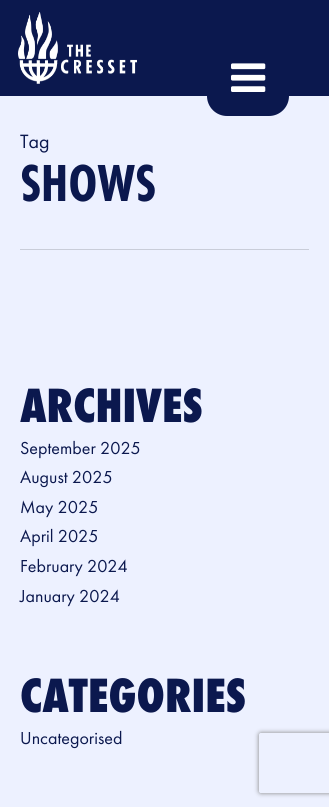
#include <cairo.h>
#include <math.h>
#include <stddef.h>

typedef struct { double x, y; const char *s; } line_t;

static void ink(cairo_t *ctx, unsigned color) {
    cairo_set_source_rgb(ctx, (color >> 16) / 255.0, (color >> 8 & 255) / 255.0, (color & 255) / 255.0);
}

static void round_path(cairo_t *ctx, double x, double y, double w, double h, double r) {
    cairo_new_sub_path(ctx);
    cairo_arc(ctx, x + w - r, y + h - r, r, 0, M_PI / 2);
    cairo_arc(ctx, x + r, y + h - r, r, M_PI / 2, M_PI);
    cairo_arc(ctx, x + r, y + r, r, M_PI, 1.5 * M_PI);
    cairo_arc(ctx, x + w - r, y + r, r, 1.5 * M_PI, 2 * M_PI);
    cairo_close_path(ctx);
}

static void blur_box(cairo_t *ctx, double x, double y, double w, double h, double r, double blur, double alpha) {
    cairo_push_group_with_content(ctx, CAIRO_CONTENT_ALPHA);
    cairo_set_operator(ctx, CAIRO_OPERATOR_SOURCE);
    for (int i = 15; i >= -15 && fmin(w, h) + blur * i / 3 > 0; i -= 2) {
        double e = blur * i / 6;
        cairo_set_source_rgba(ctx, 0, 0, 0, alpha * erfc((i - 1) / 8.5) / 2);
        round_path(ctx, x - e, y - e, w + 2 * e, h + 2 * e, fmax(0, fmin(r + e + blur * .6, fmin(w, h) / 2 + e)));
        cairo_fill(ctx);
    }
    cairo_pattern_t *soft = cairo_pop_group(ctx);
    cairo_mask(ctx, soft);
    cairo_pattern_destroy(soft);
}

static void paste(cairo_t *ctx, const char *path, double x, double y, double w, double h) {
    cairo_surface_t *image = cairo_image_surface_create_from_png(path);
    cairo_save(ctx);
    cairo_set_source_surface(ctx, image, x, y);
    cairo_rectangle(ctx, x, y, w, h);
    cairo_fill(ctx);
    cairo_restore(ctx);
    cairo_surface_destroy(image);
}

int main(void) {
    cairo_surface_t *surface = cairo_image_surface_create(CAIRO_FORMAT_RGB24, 329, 807);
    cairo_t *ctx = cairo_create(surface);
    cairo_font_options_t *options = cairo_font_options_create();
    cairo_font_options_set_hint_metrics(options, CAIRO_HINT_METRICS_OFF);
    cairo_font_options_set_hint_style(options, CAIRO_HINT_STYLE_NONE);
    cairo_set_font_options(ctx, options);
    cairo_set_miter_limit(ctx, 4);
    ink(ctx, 0xEDF1FF);
    cairo_paint(ctx);
    ink(ctx, 0x0B184E);
    cairo_rectangle(ctx, 0, 0, 329, 95);
    cairo_fill(ctx);
    paste(ctx, "media/1.png", 18, 12, 119, 72);
    cairo_new_path(ctx);
    cairo_move_to(ctx, 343, 95);
    cairo_line_to(ctx, -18, 95);
    cairo_line_to(ctx, -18, 106);
    cairo_curve_to(ctx, -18, 106, 11, 116, 72, 116);
    cairo_curve_to(ctx, 133, 116, 191, 99, 252, 98);
    cairo_curve_to(ctx, 313, 97, 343, 109, 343, 109);
    cairo_close_path(ctx);
    cairo_fill(ctx);
    ink(ctx, 0xEDF1FF);
    cairo_rectangle(ctx, 0, 96, 329, 20);
    cairo_fill(ctx);
    ink(ctx, 0x0B184E);
    round_path(ctx, 207, 40, 82, 76, 20);
    cairo_fill(ctx);
    paste(ctx, "media/2.png", 231, 63, 35, 29);
    ink(ctx, 0xC9CDD9);
    cairo_rectangle(ctx, 20, 249, 289, 1);
    cairo_fill(ctx);
    cairo_select_font_face(ctx, "Futura PT", CAIRO_FONT_SLANT_NORMAL, CAIRO_FONT_WEIGHT_NORMAL);
    cairo_set_font_size(ctx, 20);
    ink(ctx, 0x0B184E);
    cairo_move_to(ctx, 20, 148);
    cairo_show_text(ctx, "Tag");
    cairo_select_font_face(ctx, "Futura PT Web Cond", CAIRO_FONT_SLANT_NORMAL, CAIRO_FONT_WEIGHT_BOLD);
    cairo_set_font_size(ctx, 54);
    cairo_move_to(ctx, 20, 201);
    cairo_show_text(ctx, "SHOWS");
    cairo_select_font_face(ctx, "Futura PT Web Cond ExtraBold", CAIRO_FONT_SLANT_NORMAL, CAIRO_FONT_WEIGHT_NORMAL);
    cairo_set_font_size(ctx, 50);
    cairo_move_to(ctx, 20, 422);
    cairo_show_text(ctx, "ARCHIVES");
    cairo_select_font_face(ctx, "Futura PT", CAIRO_FONT_SLANT_NORMAL, CAIRO_FONT_WEIGHT_NORMAL);
    cairo_set_font_size(ctx, 18);
    {
        static const line_t items[] = {
            {20, 454, "September 2025"},
            {20, 483, "August 2025"},
            {20, 513, "May 2025"},
            {20, 542, "April 2025"},
            {20, 572, "February 2024"},
            {20, 602, "January 2024"},
        };
        for (size_t i = 0; i < sizeof items / sizeof *items; i++) {
            cairo_move_to(ctx, items[i].x, items[i].y);
            cairo_show_text(ctx, items[i].s);
        }
    }
    cairo_select_font_face(ctx, "Futura PT Web Cond ExtraBold", CAIRO_FONT_SLANT_NORMAL, CAIRO_FONT_WEIGHT_NORMAL);
    cairo_set_font_size(ctx, 50);
    cairo_move_to(ctx, 20, 712);
    cairo_show_text(ctx, "CATEGORIES");
    cairo_select_font_face(ctx, "Futura PT", CAIRO_FONT_SLANT_NORMAL, CAIRO_FONT_WEIGHT_NORMAL);
    cairo_set_font_size(ctx, 18);
    cairo_move_to(ctx, 20, 744);
    cairo_show_text(ctx, "Uncategorised");
    cairo_save(ctx);
    cairo_set_fill_rule(ctx, CAIRO_FILL_RULE_EVEN_ODD);
    cairo_new_path(ctx);
    cairo_move_to(ctx, 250, 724);
    cairo_line_to(ctx, 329, 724);
    cairo_line_to(ctx, 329, 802);
    cairo_line_to(ctx, 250, 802);
    cairo_close_path(ctx);
    cairo_move_to(ctx, 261, 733);
    cairo_line_to(ctx, 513, 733);
    cairo_curve_to(ctx, 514, 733, 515, 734, 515, 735);
    cairo_line_to(ctx, 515, 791);
    cairo_curve_to(ctx, 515, 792, 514, 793, 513, 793);
    cairo_line_to(ctx, 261, 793);
    cairo_curve_to(ctx, 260, 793, 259, 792, 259, 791);
    cairo_line_to(ctx, 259, 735);
    cairo_curve_to(ctx, 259, 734, 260, 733, 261, 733);
    cairo_close_path(ctx);
    cairo_clip(ctx);
    ink(ctx, 0x808080);
    blur_box(ctx, 259, 733, 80, 60, 2, 2.5, 1);
    cairo_restore(ctx);
    cairo_surface_write_to_png(surface, "image.png");
    cairo_font_options_destroy(options);
    cairo_destroy(ctx);
    cairo_surface_destroy(surface);
    return 0;
}
